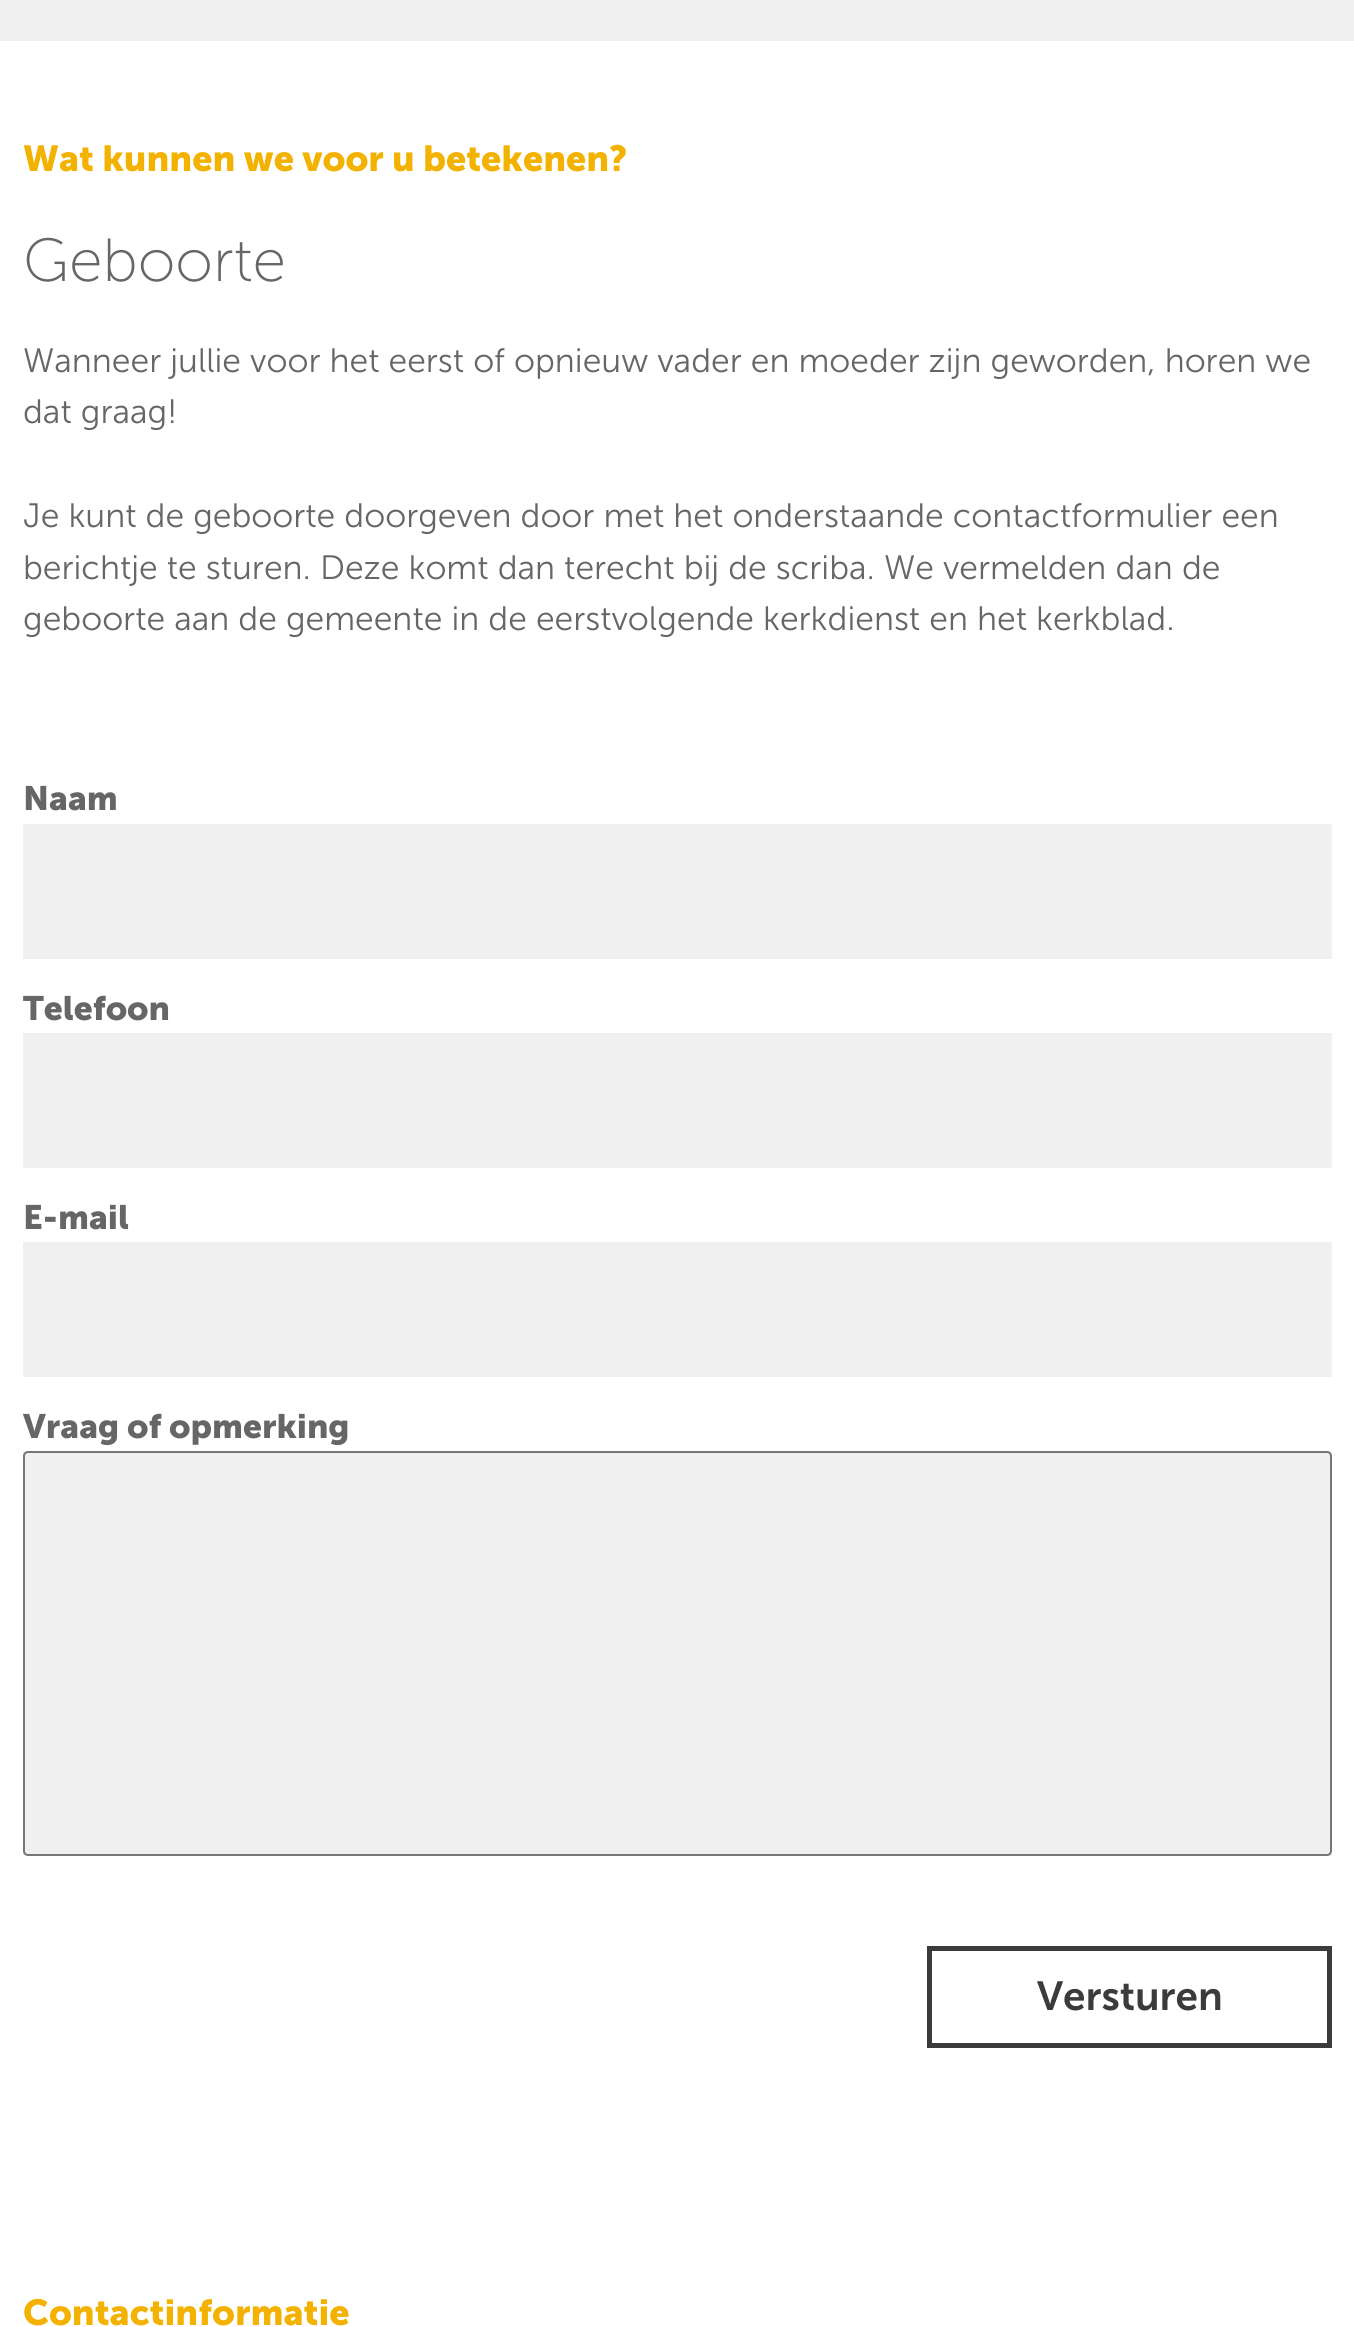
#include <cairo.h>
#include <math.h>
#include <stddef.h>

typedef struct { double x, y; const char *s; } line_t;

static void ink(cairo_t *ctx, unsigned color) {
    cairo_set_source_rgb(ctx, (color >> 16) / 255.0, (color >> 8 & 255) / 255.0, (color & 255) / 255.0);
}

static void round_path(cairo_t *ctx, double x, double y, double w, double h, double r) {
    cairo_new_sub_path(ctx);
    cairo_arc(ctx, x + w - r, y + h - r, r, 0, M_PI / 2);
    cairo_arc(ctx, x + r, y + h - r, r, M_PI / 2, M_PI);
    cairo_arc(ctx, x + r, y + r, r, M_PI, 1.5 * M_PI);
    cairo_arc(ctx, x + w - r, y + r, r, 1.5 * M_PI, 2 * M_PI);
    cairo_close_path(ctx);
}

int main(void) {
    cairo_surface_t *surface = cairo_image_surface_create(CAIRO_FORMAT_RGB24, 1354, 2327);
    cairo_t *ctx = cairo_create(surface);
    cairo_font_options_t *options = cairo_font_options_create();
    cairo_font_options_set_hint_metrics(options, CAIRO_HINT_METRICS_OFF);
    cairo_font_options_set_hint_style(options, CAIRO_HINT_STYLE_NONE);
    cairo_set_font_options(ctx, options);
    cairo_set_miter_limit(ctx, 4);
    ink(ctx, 0xFFFFFF);
    cairo_paint(ctx);
    ink(ctx, 0xF0F0F0);
    cairo_rectangle(ctx, 0, 0, 1354, 41);
    cairo_fill(ctx);
    cairo_select_font_face(ctx, "Museo Sans", CAIRO_FONT_SLANT_NORMAL, CAIRO_FONT_WEIGHT_BOLD);
    cairo_set_font_size(ctx, 36);
    ink(ctx, 0xF3B100);
    cairo_move_to(ctx, 23, 171);
    cairo_show_text(ctx, "Wat kunnen we voor u betekenen?");
    cairo_select_font_face(ctx, "Museo Sans ExtraLight", CAIRO_FONT_SLANT_NORMAL, CAIRO_FONT_WEIGHT_NORMAL);
    cairo_set_font_size(ctx, 60.75);
    ink(ctx, 0x666666);
    cairo_move_to(ctx, 23, 281);
    cairo_show_text(ctx, "Geboorte");
    cairo_select_font_face(ctx, "Museo Sans Light", CAIRO_FONT_SLANT_NORMAL, CAIRO_FONT_WEIGHT_NORMAL);
    cairo_set_font_size(ctx, 33.75);
    {
        static const line_t items[] = {
            {23, 372, "Wanneer jullie voor het eerst of opnieuw vader en moeder zijn geworden, horen we"},
            {23, 423, "dat graag!"},
            {23, 527, "Je kunt de geboorte doorgeven door met het onderstaande contactformulier een"},
            {23, 579, "berichtje te sturen. Deze komt dan terecht bij de scriba. We vermelden dan de"},
            {23, 630, "geboorte aan de gemeente in de eerstvolgende kerkdienst en het kerkblad."},
        };
        for (size_t i = 0; i < sizeof items / sizeof *items; i++) {
            cairo_move_to(ctx, items[i].x, items[i].y);
            cairo_show_text(ctx, items[i].s);
        }
    }
    cairo_select_font_face(ctx, "Museo Sans", CAIRO_FONT_SLANT_NORMAL, CAIRO_FONT_WEIGHT_BOLD);
    cairo_move_to(ctx, 23, 810);
    cairo_show_text(ctx, "Naam");
    ink(ctx, 0xF0F0F0);
    cairo_rectangle(ctx, 23, 824, 1309, 135);
    cairo_fill(ctx);
    ink(ctx, 0x666666);
    cairo_move_to(ctx, 23, 1020);
    cairo_show_text(ctx, "Telefoon");
    ink(ctx, 0xF0F0F0);
    cairo_rectangle(ctx, 23, 1033, 1309, 135);
    cairo_fill(ctx);
    ink(ctx, 0x666666);
    cairo_move_to(ctx, 23, 1229);
    cairo_show_text(ctx, "E-mail");
    ink(ctx, 0xF0F0F0);
    cairo_rectangle(ctx, 23, 1242, 1309, 135);
    cairo_fill(ctx);
    ink(ctx, 0x666666);
    cairo_move_to(ctx, 23, 1438);
    cairo_show_text(ctx, "Vraag of opmerking");
    ink(ctx, 0xF0F0F0);
    cairo_rectangle(ctx, 23, 1451, 1309, 405);
    cairo_fill(ctx);
    round_path(ctx, 24, 1452, 1307, 403, 4);
    ink(ctx, 0x767676);
    cairo_stroke(ctx);
    cairo_rectangle(ctx, 929.5, 1948.5, 400, 97);
    ink(ctx, 0x3B3B3B);
    cairo_set_line_width(ctx, 5);
    cairo_stroke(ctx);
    cairo_select_font_face(ctx, "Museo Sans SemiBold", CAIRO_FONT_SLANT_NORMAL, CAIRO_FONT_WEIGHT_NORMAL);
    cairo_set_font_size(ctx, 40.5);
    cairo_move_to(ctx, 1037, 2010);
    cairo_show_text(ctx, "Versturen");
    cairo_select_font_face(ctx, "Museo Sans", CAIRO_FONT_SLANT_NORMAL, CAIRO_FONT_WEIGHT_BOLD);
    cairo_set_font_size(ctx, 36);
    ink(ctx, 0xF3B100);
    cairo_move_to(ctx, 23, 2325);
    cairo_show_text(ctx, "Contactinformatie");
    cairo_surface_write_to_png(surface, "image.png");
    cairo_font_options_destroy(options);
    cairo_destroy(ctx);
    cairo_surface_destroy(surface);
    return 0;
}
